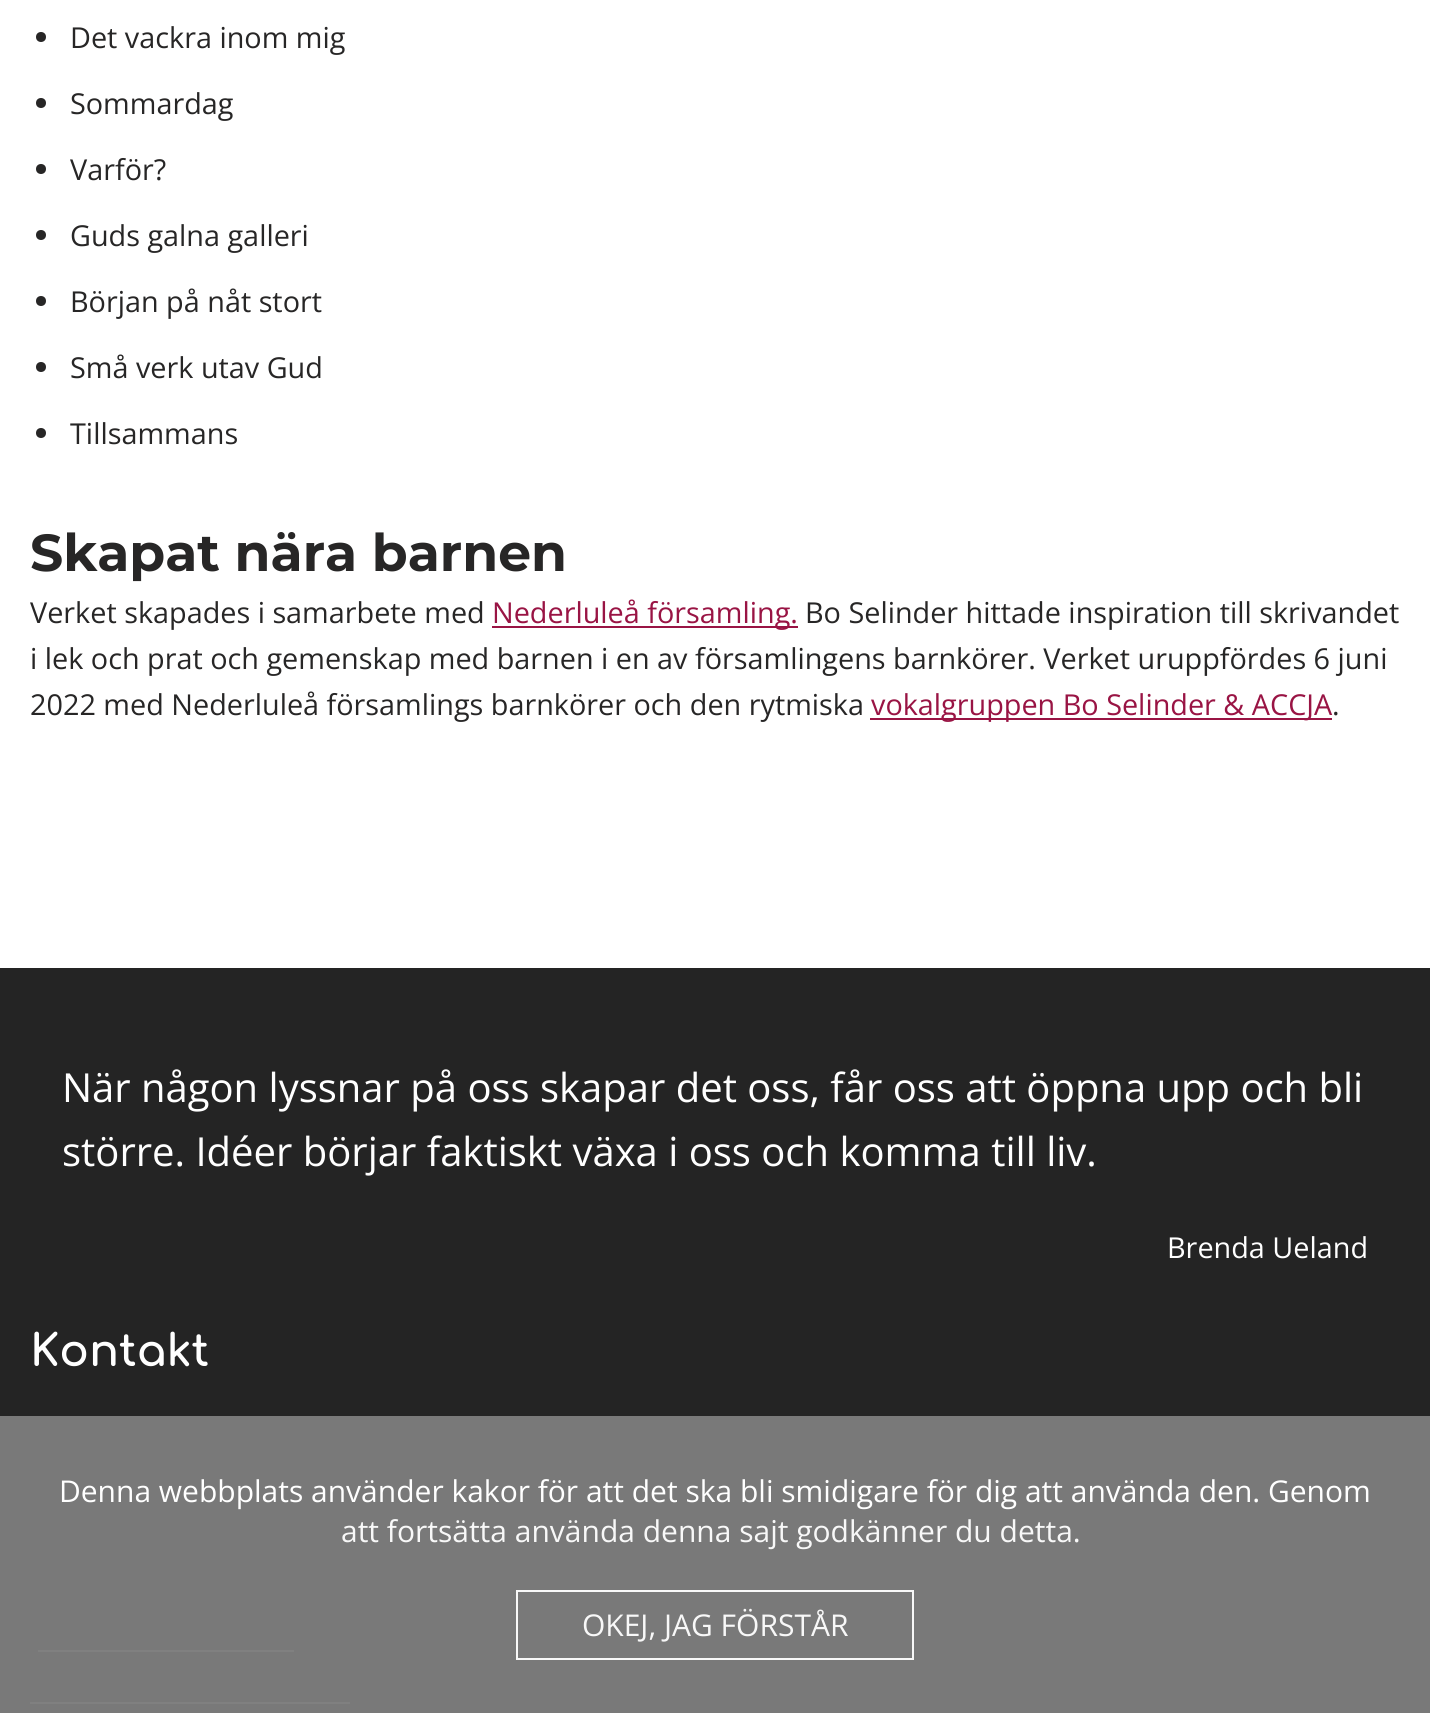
#include <cairo.h>
#include <math.h>
#include <stddef.h>

typedef struct { double x, y; const char *s; } line_t;

static void ink(cairo_t *ctx, unsigned color) {
    cairo_set_source_rgb(ctx, (color >> 16) / 255.0, (color >> 8 & 255) / 255.0, (color & 255) / 255.0);
}

int main(void) {
    cairo_surface_t *surface = cairo_image_surface_create(CAIRO_FORMAT_RGB24, 1430, 1713);
    cairo_t *ctx = cairo_create(surface);
    cairo_font_options_t *options = cairo_font_options_create();
    cairo_font_options_set_hint_metrics(options, CAIRO_HINT_METRICS_OFF);
    cairo_font_options_set_hint_style(options, CAIRO_HINT_STYLE_NONE);
    cairo_set_font_options(ctx, options);
    cairo_set_miter_limit(ctx, 4);
    ink(ctx, 0xFFFFFF);
    cairo_paint(ctx);
    ink(ctx, 0x272626);
    cairo_arc(ctx, 41, 37, 5, 0, 2 * M_PI);
    cairo_fill(ctx);
    cairo_select_font_face(ctx, "Open Sans", CAIRO_FONT_SLANT_NORMAL, CAIRO_FONT_WEIGHT_NORMAL);
    cairo_set_font_size(ctx, 28.8);
    cairo_move_to(ctx, 70, 48);
    cairo_show_text(ctx, "Det vackra inom mig");
    cairo_new_path(ctx);
    cairo_arc(ctx, 41, 103, 5, 0, 2 * M_PI);
    cairo_fill(ctx);
    cairo_move_to(ctx, 70, 114);
    cairo_show_text(ctx, "Sommardag");
    cairo_new_path(ctx);
    cairo_arc(ctx, 41, 169, 5, 0, 2 * M_PI);
    cairo_fill(ctx);
    cairo_move_to(ctx, 70, 180);
    cairo_show_text(ctx, "Varför?");
    cairo_new_path(ctx);
    cairo_arc(ctx, 41, 235, 5, 0, 2 * M_PI);
    cairo_fill(ctx);
    cairo_move_to(ctx, 70, 246);
    cairo_show_text(ctx, "Guds galna galleri");
    cairo_new_path(ctx);
    cairo_arc(ctx, 41, 301, 5, 0, 2 * M_PI);
    cairo_fill(ctx);
    cairo_move_to(ctx, 70, 312);
    cairo_show_text(ctx, "Början på nåt stort");
    cairo_new_path(ctx);
    cairo_arc(ctx, 41, 367, 5, 0, 2 * M_PI);
    cairo_fill(ctx);
    cairo_move_to(ctx, 70, 378);
    cairo_show_text(ctx, "Små verk utav Gud");
    cairo_new_path(ctx);
    cairo_arc(ctx, 41, 433, 5, 0, 2 * M_PI);
    cairo_fill(ctx);
    cairo_move_to(ctx, 70, 444);
    cairo_show_text(ctx, "Tillsammans");
    cairo_select_font_face(ctx, "Montserrat", CAIRO_FONT_SLANT_NORMAL, CAIRO_FONT_WEIGHT_BOLD);
    cairo_set_font_size(ctx, 52);
    cairo_move_to(ctx, 30, 571);
    cairo_show_text(ctx, "Skapat nära barnen");
    cairo_select_font_face(ctx, "Open Sans", CAIRO_FONT_SLANT_NORMAL, CAIRO_FONT_WEIGHT_NORMAL);
    cairo_set_font_size(ctx, 28.8);
    cairo_move_to(ctx, 30, 623);
    cairo_show_text(ctx, "Verket skapades i samarbete med");
    ink(ctx, 0x991444);
    cairo_rectangle(ctx, 492, 626, 306, 2);
    cairo_fill(ctx);
    cairo_move_to(ctx, 492, 623);
    cairo_show_text(ctx, "Nederluleå församling.");
    ink(ctx, 0x272626);
    {
        static const line_t items[] = {
            {805, 623, "Bo Selinder hittade inspiration till skrivandet"},
            {30, 669, "i lek och prat och gemenskap med barnen i en av församlingens barnkörer. Verket uruppfördes 6 juni"},
            {30, 715, "2022 med Nederluleå församlings barnkörer och den rytmiska"},
        };
        for (size_t i = 0; i < sizeof items / sizeof *items; i++) {
            cairo_move_to(ctx, items[i].x, items[i].y);
            cairo_show_text(ctx, items[i].s);
        }
    }
    ink(ctx, 0x991444);
    cairo_rectangle(ctx, 870, 718, 462, 2);
    cairo_fill(ctx);
    cairo_move_to(ctx, 871, 715);
    cairo_show_text(ctx, "vokalgruppen Bo Selinder & ACCJA");
    ink(ctx, 0x272626);
    cairo_move_to(ctx, 1332, 715);
    cairo_show_text(ctx, ".");
    ink(ctx, 0x242424);
    cairo_rectangle(ctx, 0, 968, 1430, 448);
    cairo_fill(ctx);
    ink(ctx, 0x797979);
    cairo_rectangle(ctx, 0, 1416, 1430, 297);
    cairo_fill(ctx);
    cairo_set_font_size(ctx, 40);
    ink(ctx, 0xFFFFFF);
    cairo_move_to(ctx, 62, 1102);
    cairo_show_text(ctx, "När någon lyssnar på oss skapar det oss, får oss att öppna upp och bli");
    cairo_move_to(ctx, 62, 1166);
    cairo_show_text(ctx, "större. Idéer börjar faktiskt växa i oss och komma till liv.");
    cairo_set_font_size(ctx, 28.8);
    cairo_move_to(ctx, 1167, 1258);
    cairo_show_text(ctx, "Brenda Ueland");
    cairo_select_font_face(ctx, "Comfortaa", CAIRO_FONT_SLANT_NORMAL, CAIRO_FONT_WEIGHT_BOLD);
    cairo_set_font_size(ctx, 44);
    cairo_move_to(ctx, 30, 1366);
    cairo_show_text(ctx, "Kontakt");
    ink(ctx, 0x808080);
    cairo_rectangle(ctx, 38, 1650, 256, 2);
    cairo_fill(ctx);
    cairo_rectangle(ctx, 30, 1702, 320, 2);
    cairo_fill(ctx);
    cairo_select_font_face(ctx, "Open Sans", CAIRO_FONT_SLANT_NORMAL, CAIRO_FONT_WEIGHT_NORMAL);
    cairo_set_font_size(ctx, 30);
    ink(ctx, 0xFFFFFF);
    cairo_move_to(ctx, 59, 1502);
    cairo_show_text(ctx, "Denna webbplats använder kakor för att det ska bli smidigare för dig att använda den. Genom");
    ink(ctx, 0xF8F8F8);
    cairo_move_to(ctx, 341, 1542);
    cairo_show_text(ctx, "att fortsätta använda denna sajt godkänner du detta.");
    cairo_rectangle(ctx, 517, 1591, 396, 68);
    cairo_stroke(ctx);
    cairo_move_to(ctx, 582, 1636);
    cairo_show_text(ctx, "OKEJ, JAG FÖRSTÅR");
    cairo_surface_write_to_png(surface, "image.png");
    cairo_font_options_destroy(options);
    cairo_destroy(ctx);
    cairo_surface_destroy(surface);
    return 0;
}
